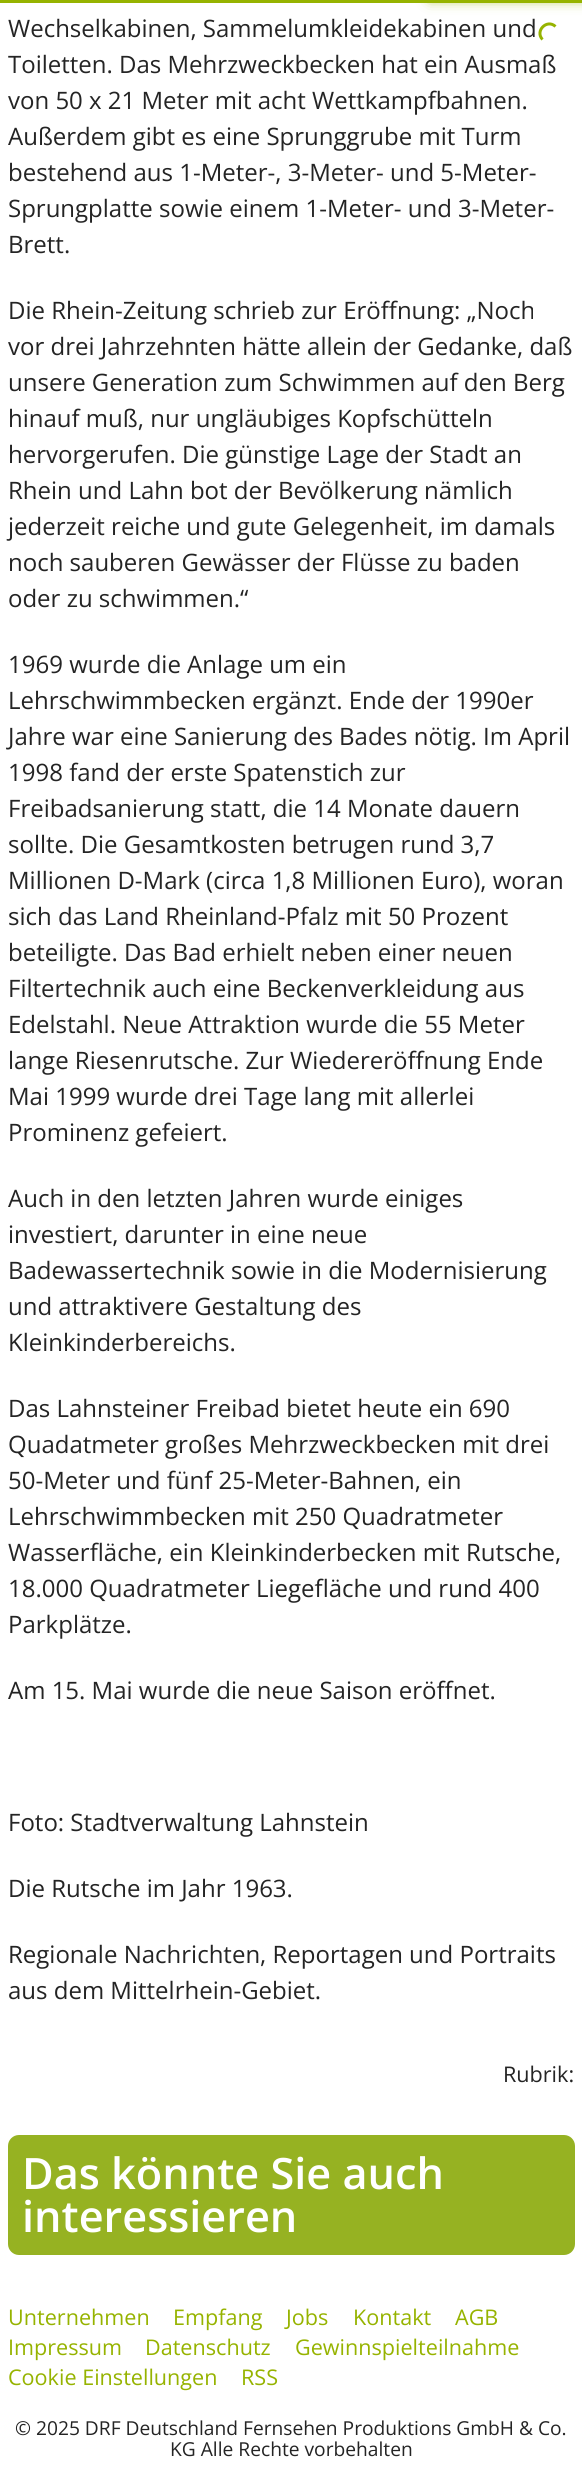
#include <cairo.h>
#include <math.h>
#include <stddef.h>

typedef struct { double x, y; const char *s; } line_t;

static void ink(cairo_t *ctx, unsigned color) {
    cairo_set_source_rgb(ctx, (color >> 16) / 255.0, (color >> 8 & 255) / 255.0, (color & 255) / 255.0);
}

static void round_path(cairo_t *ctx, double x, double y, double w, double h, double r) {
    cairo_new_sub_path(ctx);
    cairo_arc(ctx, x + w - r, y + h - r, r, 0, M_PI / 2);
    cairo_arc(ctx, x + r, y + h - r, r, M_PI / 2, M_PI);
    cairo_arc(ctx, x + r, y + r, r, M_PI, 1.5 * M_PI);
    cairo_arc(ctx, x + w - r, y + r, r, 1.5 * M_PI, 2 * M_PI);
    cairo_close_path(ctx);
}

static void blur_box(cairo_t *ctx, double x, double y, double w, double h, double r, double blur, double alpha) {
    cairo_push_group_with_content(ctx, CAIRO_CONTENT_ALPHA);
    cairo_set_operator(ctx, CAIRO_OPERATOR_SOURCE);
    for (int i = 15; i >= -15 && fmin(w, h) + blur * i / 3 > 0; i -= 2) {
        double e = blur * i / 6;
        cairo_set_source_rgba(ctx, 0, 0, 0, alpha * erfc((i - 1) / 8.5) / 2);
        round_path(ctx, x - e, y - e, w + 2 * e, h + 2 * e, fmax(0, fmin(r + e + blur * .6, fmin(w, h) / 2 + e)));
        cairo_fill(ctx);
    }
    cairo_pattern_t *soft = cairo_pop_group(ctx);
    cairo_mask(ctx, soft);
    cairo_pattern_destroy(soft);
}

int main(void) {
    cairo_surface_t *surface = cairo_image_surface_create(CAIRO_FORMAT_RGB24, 582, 2490);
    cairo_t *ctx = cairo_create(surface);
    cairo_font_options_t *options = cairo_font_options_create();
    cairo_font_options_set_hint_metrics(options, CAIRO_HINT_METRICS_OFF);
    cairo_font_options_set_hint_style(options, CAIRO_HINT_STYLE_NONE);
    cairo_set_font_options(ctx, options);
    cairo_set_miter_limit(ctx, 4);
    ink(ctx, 0xFFFFFF);
    cairo_paint(ctx);
    ink(ctx, 0x96B300);
    cairo_rectangle(ctx, 0, 0, 582, 3);
    cairo_fill(ctx);
    ink(ctx, 0x96B300);
    blur_box(ctx, 432, -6, 150, 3, 0, 4, 1);
    blur_box(ctx, 432, -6, 150, 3, 0, 7.5, 1);
    cairo_new_path(ctx);
    cairo_move_to(ctx, 542.5, 39.5);
    cairo_curve_to(ctx, 534.5, 31, 547, 18.5, 555.5, 26.5);
    ink(ctx, 0x96B300);
    cairo_set_line_width(ctx, 3);
    cairo_stroke(ctx);
    cairo_select_font_face(ctx, "Open Sans", CAIRO_FONT_SLANT_NORMAL, CAIRO_FONT_WEIGHT_NORMAL);
    cairo_set_font_size(ctx, 24);
    ink(ctx, 0x242424);
    {
        static const line_t items[] = {
            {8, 37, "Wechselkabinen, Sammelumkleidekabinen und"},
            {8, 73, "Toiletten. Das Mehrzweckbecken hat ein Ausmaß"},
            {8, 109, "von 50 x 21 Meter mit acht Wettkampfbahnen."},
            {8, 145, "Außerdem gibt es eine Sprunggrube mit Turm"},
            {8, 181, "bestehend aus 1-Meter-, 3-Meter- und 5-Meter-"},
            {8, 217, "Sprungplatte sowie einem 1-Meter- und 3-Meter-"},
            {8, 253, "Brett."},
            {8, 319, "Die Rhein-Zeitung schrieb zur Eröffnung: „Noch"},
            {8, 355, "vor drei Jahrzehnten hätte allein der Gedanke, daß"},
            {8, 391, "unsere Generation zum Schwimmen auf den Berg"},
            {8, 427, "hinauf muß, nur ungläubiges Kopfschütteln"},
            {8, 463, "hervorgerufen. Die günstige Lage der Stadt an"},
            {8, 499, "Rhein und Lahn bot der Bevölkerung nämlich"},
            {8, 535, "jederzeit reiche und gute Gelegenheit, im damals"},
            {8, 571, "noch sauberen Gewässer der Flüsse zu baden"},
            {8, 607, "oder zu schwimmen.“"},
            {8, 673, "1969 wurde die Anlage um ein"},
            {8, 709, "Lehrschwimmbecken ergänzt. Ende der 1990er"},
            {8, 745, "Jahre war eine Sanierung des Bades nötig. Im April"},
            {8, 781, "1998 fand der erste Spatenstich zur"},
            {8, 817, "Freibadsanierung statt, die 14 Monate dauern"},
            {8, 853, "sollte. Die Gesamtkosten betrugen rund 3,7"},
            {8, 889, "Millionen D-Mark (circa 1,8 Millionen Euro), woran"},
            {8, 925, "sich das Land Rheinland-Pfalz mit 50 Prozent"},
            {8, 961, "beteiligte. Das Bad erhielt neben einer neuen"},
            {8, 997, "Filtertechnik auch eine Beckenverkleidung aus"},
            {8, 1033, "Edelstahl. Neue Attraktion wurde die 55 Meter"},
            {8, 1069, "lange Riesenrutsche. Zur Wiedereröffnung Ende"},
            {8, 1105, "Mai 1999 wurde drei Tage lang mit allerlei"},
            {8, 1141, "Prominenz gefeiert."},
            {8, 1207, "Auch in den letzten Jahren wurde einiges"},
            {8, 1243, "investiert, darunter in eine neue"},
            {8, 1279, "Badewassertechnik sowie in die Modernisierung"},
            {8, 1315, "und attraktivere Gestaltung des"},
            {8, 1351, "Kleinkinderbereichs."},
            {8, 1417, "Das Lahnsteiner Freibad bietet heute ein 690"},
            {8, 1453, "Quadatmeter großes Mehrzweckbecken mit drei"},
            {8, 1489, "50-Meter und fünf 25-Meter-Bahnen, ein"},
            {8, 1525, "Lehrschwimmbecken mit 250 Quadratmeter"},
            {8, 1561, "Wasserfläche, ein Kleinkinderbecken mit Rutsche,"},
            {8, 1597, "18.000 Quadratmeter Liegefläche und rund 400"},
            {8, 1633, "Parkplätze."},
            {8, 1699, "Am 15. Mai wurde die neue Saison eröffnet."},
            {8, 1831, "Foto: Stadtverwaltung Lahnstein"},
            {8, 1897, "Die Rutsche im Jahr 1963."},
            {8, 1963, "Regionale Nachrichten, Reportagen und Portraits"},
            {8, 1999, "aus dem Mittelrhein-Gebiet."},
        };
        for (size_t i = 0; i < sizeof items / sizeof *items; i++) {
            cairo_move_to(ctx, items[i].x, items[i].y);
            cairo_show_text(ctx, items[i].s);
        }
    }
    cairo_set_font_size(ctx, 21.6);
    cairo_move_to(ctx, 503, 2082);
    cairo_show_text(ctx, "Rubrik:");
    ink(ctx, 0x96B222);
    round_path(ctx, 8, 2135, 567, 120, 11);
    cairo_fill(ctx);
    cairo_select_font_face(ctx, "Open Sans SemiBold", CAIRO_FONT_SLANT_NORMAL, CAIRO_FONT_WEIGHT_NORMAL);
    cairo_set_font_size(ctx, 43.25);
    ink(ctx, 0xFFFFFF);
    cairo_move_to(ctx, 22, 2189);
    cairo_show_text(ctx, "Das könnte Sie auch");
    cairo_move_to(ctx, 22, 2232);
    cairo_show_text(ctx, "interessieren");
    cairo_select_font_face(ctx, "Open Sans", CAIRO_FONT_SLANT_NORMAL, CAIRO_FONT_WEIGHT_NORMAL);
    cairo_set_font_size(ctx, 21.6);
    ink(ctx, 0x96B300);
    {
        static const line_t items[] = {
            {8, 2325, "Unternehmen"},
            {173, 2325, "Empfang"},
            {286, 2325, "Jobs"},
            {353, 2325, "Kontakt"},
            {455, 2325, "AGB"},
            {8, 2355, "Impressum"},
            {145, 2355, "Datenschutz"},
            {295, 2355, "Gewinnspielteilnahme"},
            {8, 2385, "Cookie Einstellungen"},
            {241, 2385, "RSS"},
        };
        for (size_t i = 0; i < sizeof items / sizeof *items; i++) {
            cairo_move_to(ctx, items[i].x, items[i].y);
            cairo_show_text(ctx, items[i].s);
        }
    }
    cairo_set_font_size(ctx, 19.2);
    ink(ctx, 0x242424);
    cairo_move_to(ctx, 15, 2435);
    cairo_show_text(ctx, "© 2025 DRF Deutschland Fernsehen Produktions GmbH & Co.");
    cairo_move_to(ctx, 170, 2456);
    cairo_show_text(ctx, "KG Alle Rechte vorbehalten");
    cairo_surface_write_to_png(surface, "image.png");
    cairo_font_options_destroy(options);
    cairo_destroy(ctx);
    cairo_surface_destroy(surface);
    return 0;
}
